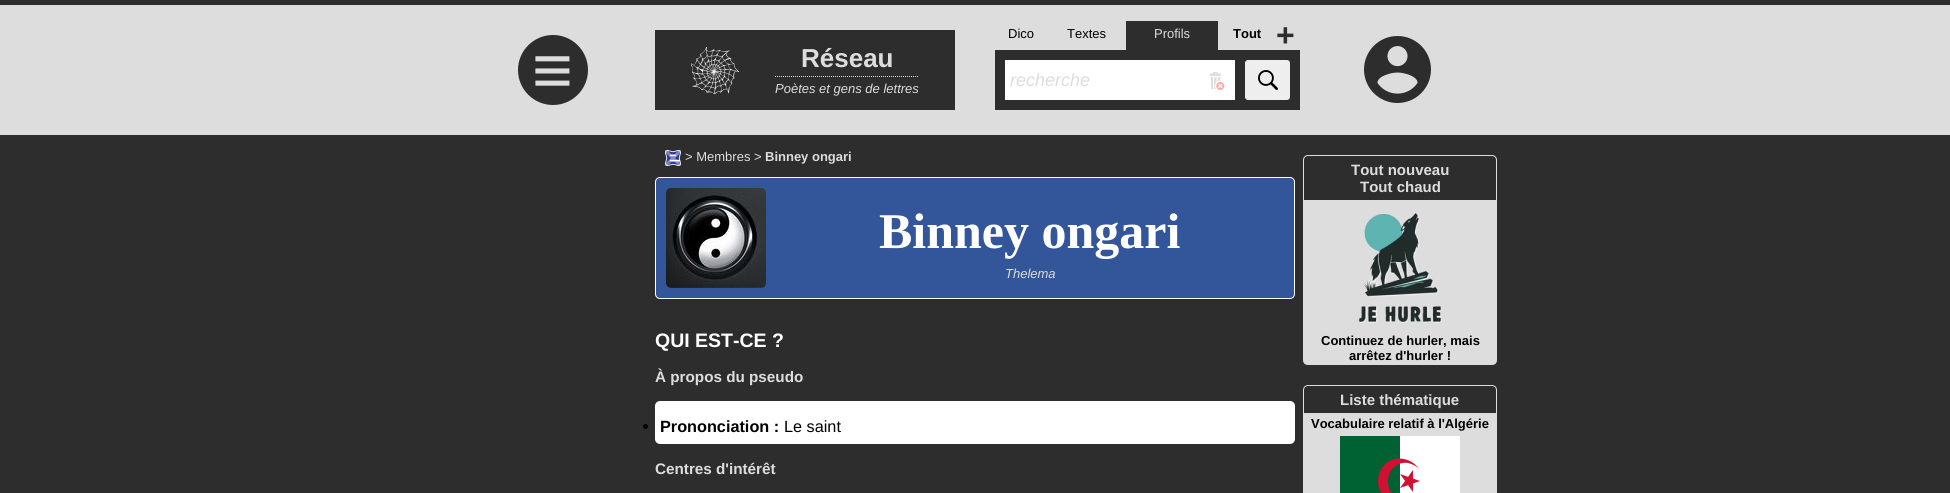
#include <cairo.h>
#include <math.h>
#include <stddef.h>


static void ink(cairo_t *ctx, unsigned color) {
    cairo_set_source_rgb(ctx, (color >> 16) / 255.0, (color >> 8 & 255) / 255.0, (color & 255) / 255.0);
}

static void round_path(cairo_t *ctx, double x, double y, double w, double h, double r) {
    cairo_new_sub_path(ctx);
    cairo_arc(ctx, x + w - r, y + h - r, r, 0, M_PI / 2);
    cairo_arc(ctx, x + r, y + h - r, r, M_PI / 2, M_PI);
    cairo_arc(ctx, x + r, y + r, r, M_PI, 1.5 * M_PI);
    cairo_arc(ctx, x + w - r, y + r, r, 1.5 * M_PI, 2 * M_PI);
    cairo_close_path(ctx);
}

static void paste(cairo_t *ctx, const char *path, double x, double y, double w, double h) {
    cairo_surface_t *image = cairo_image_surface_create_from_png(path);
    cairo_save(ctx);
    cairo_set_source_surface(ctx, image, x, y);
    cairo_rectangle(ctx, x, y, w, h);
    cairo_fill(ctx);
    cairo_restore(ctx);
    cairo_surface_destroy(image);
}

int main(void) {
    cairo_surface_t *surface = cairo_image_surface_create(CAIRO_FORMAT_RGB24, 1950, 493);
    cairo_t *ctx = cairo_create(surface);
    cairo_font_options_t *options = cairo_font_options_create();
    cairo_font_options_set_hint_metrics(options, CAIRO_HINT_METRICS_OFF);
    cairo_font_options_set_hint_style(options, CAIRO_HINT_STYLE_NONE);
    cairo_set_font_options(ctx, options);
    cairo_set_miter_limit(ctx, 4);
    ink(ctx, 0x2D2D2D);
    cairo_paint(ctx);
    ink(ctx, 0xDDDDDD);
    cairo_rectangle(ctx, 0, 5, 1950, 130);
    cairo_fill(ctx);
    ink(ctx, 0x2D2D2D);
    cairo_arc(ctx, 553, 70, 35, 0, 2 * M_PI);
    cairo_fill(ctx);
    cairo_select_font_face(ctx, "Liberation Sans", CAIRO_FONT_SLANT_NORMAL, CAIRO_FONT_WEIGHT_NORMAL);
    cairo_set_font_size(ctx, 70);
    ink(ctx, 0xDDDDDD);
    cairo_move_to(ctx, 532, 94);
    cairo_show_text(ctx, "≡");
    ink(ctx, 0x2D2D2D);
    cairo_rectangle(ctx, 655, 30, 300, 80);
    cairo_fill(ctx);
    paste(ctx, "media/1.png", 691, 47, 48, 47);
    cairo_select_font_face(ctx, "Liberation Sans", CAIRO_FONT_SLANT_NORMAL, CAIRO_FONT_WEIGHT_BOLD);
    cairo_set_font_size(ctx, 26);
    ink(ctx, 0xDDDDDD);
    cairo_move_to(ctx, 801, 67);
    cairo_show_text(ctx, "Réseau");
    cairo_new_path(ctx);
    cairo_move_to(ctx, 775, 76.5);
    cairo_line_to(ctx, 919, 76.5);
    cairo_set_line_width(ctx, 1);
    cairo_set_dash(ctx, (double[]){1, 1}, 2, 0);
    cairo_stroke(ctx);
    cairo_select_font_face(ctx, "Liberation Sans", CAIRO_FONT_SLANT_ITALIC, CAIRO_FONT_WEIGHT_NORMAL);
    cairo_set_font_size(ctx, 13);
    cairo_move_to(ctx, 775, 93);
    cairo_show_text(ctx, "Poètes et gens de lettres");
    paste(ctx, "media/2.png", 1364, 36, 67, 67);
    cairo_select_font_face(ctx, "Liberation Sans", CAIRO_FONT_SLANT_NORMAL, CAIRO_FONT_WEIGHT_NORMAL);
    ink(ctx, 0x000000);
    cairo_move_to(ctx, 1008, 38);
    cairo_show_text(ctx, "Dico");
    cairo_move_to(ctx, 1067, 38);
    cairo_show_text(ctx, "Textes");
    ink(ctx, 0x2D2D2D);
    cairo_rectangle(ctx, 1126, 21, 92, 29);
    cairo_fill(ctx);
    ink(ctx, 0xDDDDDD);
    cairo_move_to(ctx, 1154, 38);
    cairo_show_text(ctx, "Profils");
    cairo_select_font_face(ctx, "Liberation Sans", CAIRO_FONT_SLANT_NORMAL, CAIRO_FONT_WEIGHT_BOLD);
    ink(ctx, 0x000000);
    cairo_move_to(ctx, 1233, 38);
    cairo_show_text(ctx, "Tout");
    cairo_set_font_size(ctx, 32);
    ink(ctx, 0x2D2D2D);
    cairo_move_to(ctx, 1276, 46);
    cairo_show_text(ctx, "+");
    cairo_rectangle(ctx, 995, 50, 305, 60);
    cairo_fill(ctx);
    ink(ctx, 0xFFFFFF);
    cairo_rectangle(ctx, 1005, 60, 230, 40);
    cairo_fill(ctx);
    cairo_select_font_face(ctx, "Liberation Sans", CAIRO_FONT_SLANT_ITALIC, CAIRO_FONT_WEIGHT_NORMAL);
    cairo_set_font_size(ctx, 18);
    ink(ctx, 0xDDDDDD);
    cairo_move_to(ctx, 1010, 86);
    cairo_show_text(ctx, "recherche");
    paste(ctx, "media/3.png", 1209, 72, 16, 18);
    ink(ctx, 0xEEEEEE);
    round_path(ctx, 1245, 60, 45, 40, 3);
    cairo_fill(ctx);
    paste(ctx, "media/4.png", 1258, 70, 20, 20);
    paste(ctx, "media/5.png", 665, 150, 16, 16);
    cairo_select_font_face(ctx, "Liberation Sans", CAIRO_FONT_SLANT_NORMAL, CAIRO_FONT_WEIGHT_NORMAL);
    cairo_set_font_size(ctx, 13);
    ink(ctx, 0xDDDDDD);
    cairo_move_to(ctx, 685, 161);
    cairo_show_text(ctx, "> Membres >");
    cairo_select_font_face(ctx, "Liberation Sans", CAIRO_FONT_SLANT_NORMAL, CAIRO_FONT_WEIGHT_BOLD);
    cairo_move_to(ctx, 765, 161);
    cairo_show_text(ctx, "Binney ongari");
    ink(ctx, 0x335599);
    round_path(ctx, 655.5, 177.5, 639, 121, 4.5);
    cairo_fill_preserve(ctx);
    ink(ctx, 0xFFFFFF);
    cairo_set_dash(ctx, NULL, 0, 0);
    cairo_stroke(ctx);
    paste(ctx, "media/6.png", 666, 188, 100, 100);
    cairo_select_font_face(ctx, "Liberation Serif", CAIRO_FONT_SLANT_NORMAL, CAIRO_FONT_WEIGHT_BOLD);
    cairo_set_font_size(ctx, 50);
    cairo_move_to(ctx, 879, 248);
    cairo_show_text(ctx, "Binney ongari");
    cairo_select_font_face(ctx, "Liberation Sans", CAIRO_FONT_SLANT_ITALIC, CAIRO_FONT_WEIGHT_NORMAL);
    cairo_set_font_size(ctx, 13);
    ink(ctx, 0xDDDDDD);
    cairo_move_to(ctx, 1005, 278);
    cairo_show_text(ctx, "Thelema");
    cairo_select_font_face(ctx, "Liberation Sans", CAIRO_FONT_SLANT_NORMAL, CAIRO_FONT_WEIGHT_BOLD);
    cairo_set_font_size(ctx, 19.5);
    ink(ctx, 0xFFFFFF);
    cairo_move_to(ctx, 655, 347);
    cairo_show_text(ctx, "QUI EST-CE ?");
    cairo_set_font_size(ctx, 15.25);
    ink(ctx, 0xDDDDDD);
    cairo_move_to(ctx, 655, 382);
    cairo_show_text(ctx, "À propos du pseudo");
    ink(ctx, 0xFFFFFF);
    round_path(ctx, 655, 401, 640, 43, 5);
    cairo_fill(ctx);
    ink(ctx, 0x000000);
    cairo_arc(ctx, 645.5, 426.5, 2.5, 0, 2 * M_PI);
    cairo_fill(ctx);
    cairo_set_font_size(ctx, 16.25);
    cairo_move_to(ctx, 660, 432);
    cairo_show_text(ctx, "Prononciation :");
    cairo_select_font_face(ctx, "Liberation Sans", CAIRO_FONT_SLANT_NORMAL, CAIRO_FONT_WEIGHT_NORMAL);
    cairo_move_to(ctx, 784, 432);
    cairo_show_text(ctx, "Le saint");
    cairo_select_font_face(ctx, "Liberation Sans", CAIRO_FONT_SLANT_NORMAL, CAIRO_FONT_WEIGHT_BOLD);
    cairo_set_font_size(ctx, 15.25);
    ink(ctx, 0xDDDDDD);
    cairo_move_to(ctx, 655, 474);
    cairo_show_text(ctx, "Centres d'intérêt");
    cairo_new_path(ctx);
    cairo_move_to(ctx, 1308, 155.5);
    cairo_line_to(ctx, 1492, 155.5);
    cairo_curve_to(ctx, 1494.5, 155.5, 1496.5, 157.5, 1496.5, 160);
    cairo_line_to(ctx, 1496.5, 200.5);
    cairo_line_to(ctx, 1303.5, 200.5);
    cairo_line_to(ctx, 1303.5, 160);
    cairo_curve_to(ctx, 1303.5, 157.5, 1305.5, 155.5, 1308, 155.5);
    cairo_close_path(ctx);
    cairo_stroke(ctx);
    cairo_set_font_size(ctx, 15);
    cairo_move_to(ctx, 1351, 175);
    cairo_show_text(ctx, "Tout nouveau");
    cairo_move_to(ctx, 1360, 192);
    cairo_show_text(ctx, "Tout chaud");
    cairo_new_path(ctx);
    cairo_move_to(ctx, 1303, 201);
    cairo_line_to(ctx, 1497, 201);
    cairo_line_to(ctx, 1497, 360);
    cairo_curve_to(ctx, 1497, 363, 1495, 365, 1492, 365);
    cairo_line_to(ctx, 1308, 365);
    cairo_curve_to(ctx, 1305, 365, 1303, 363, 1303, 360);
    cairo_close_path(ctx);
    cairo_fill(ctx);
    paste(ctx, "media/7.png", 1358, 211, 84, 112);
    cairo_set_font_size(ctx, 13);
    ink(ctx, 0x000000);
    cairo_move_to(ctx, 1321, 345);
    cairo_show_text(ctx, "Continuez de hurler, mais");
    cairo_move_to(ctx, 1349, 360);
    cairo_show_text(ctx, "arrêtez d'hurler !");
    cairo_new_path(ctx);
    cairo_move_to(ctx, 1308, 385.5);
    cairo_line_to(ctx, 1492, 385.5);
    cairo_curve_to(ctx, 1494.5, 385.5, 1496.5, 387.5, 1496.5, 390);
    cairo_line_to(ctx, 1496.5, 413.5);
    cairo_line_to(ctx, 1303.5, 413.5);
    cairo_line_to(ctx, 1303.5, 390);
    cairo_curve_to(ctx, 1303.5, 387.5, 1305.5, 385.5, 1308, 385.5);
    cairo_close_path(ctx);
    ink(ctx, 0xDDDDDD);
    cairo_stroke(ctx);
    cairo_set_font_size(ctx, 15);
    cairo_move_to(ctx, 1340, 405);
    cairo_show_text(ctx, "Liste thématique");
    cairo_rectangle(ctx, 1303, 414, 194, 79);
    cairo_fill(ctx);
    cairo_set_font_size(ctx, 13);
    ink(ctx, 0x000000);
    cairo_move_to(ctx, 1311, 428);
    cairo_show_text(ctx, "Vocabulaire relatif à l'Algérie");
    ink(ctx, 0xFFFFFF);
    cairo_rectangle(ctx, 1400, 436, 60, 57);
    cairo_fill(ctx);
    ink(ctx, 0x006233);
    cairo_rectangle(ctx, 1340, 436, 60, 57);
    cairo_fill(ctx);
    ink(ctx, 0xD21034);
    cairo_new_path(ctx);
    cairo_move_to(ctx, 1420, 470);
    cairo_curve_to(ctx, 1414, 461, 1404, 457, 1394, 459);
    cairo_curve_to(ctx, 1384, 462, 1378, 471, 1378, 481);
    cairo_curve_to(ctx, 1378, 491, 1384, 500, 1394, 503);
    cairo_curve_to(ctx, 1404, 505, 1414, 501, 1420, 492);
    cairo_curve_to(ctx, 1415, 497, 1409, 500, 1402, 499);
    cairo_curve_to(ctx, 1380, 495, 1385, 460, 1408, 463);
    cairo_curve_to(ctx, 1412, 464, 1417, 466, 1420, 470);
    cairo_move_to(ctx, 1420, 481);
    cairo_line_to(ctx, 1400, 474);
    cairo_line_to(ctx, 1413, 492);
    cairo_line_to(ctx, 1413, 470);
    cairo_line_to(ctx, 1400, 488);
    cairo_close_path(ctx);
    cairo_fill(ctx);
    cairo_surface_write_to_png(surface, "image.png");
    cairo_font_options_destroy(options);
    cairo_destroy(ctx);
    cairo_surface_destroy(surface);
    return 0;
}
